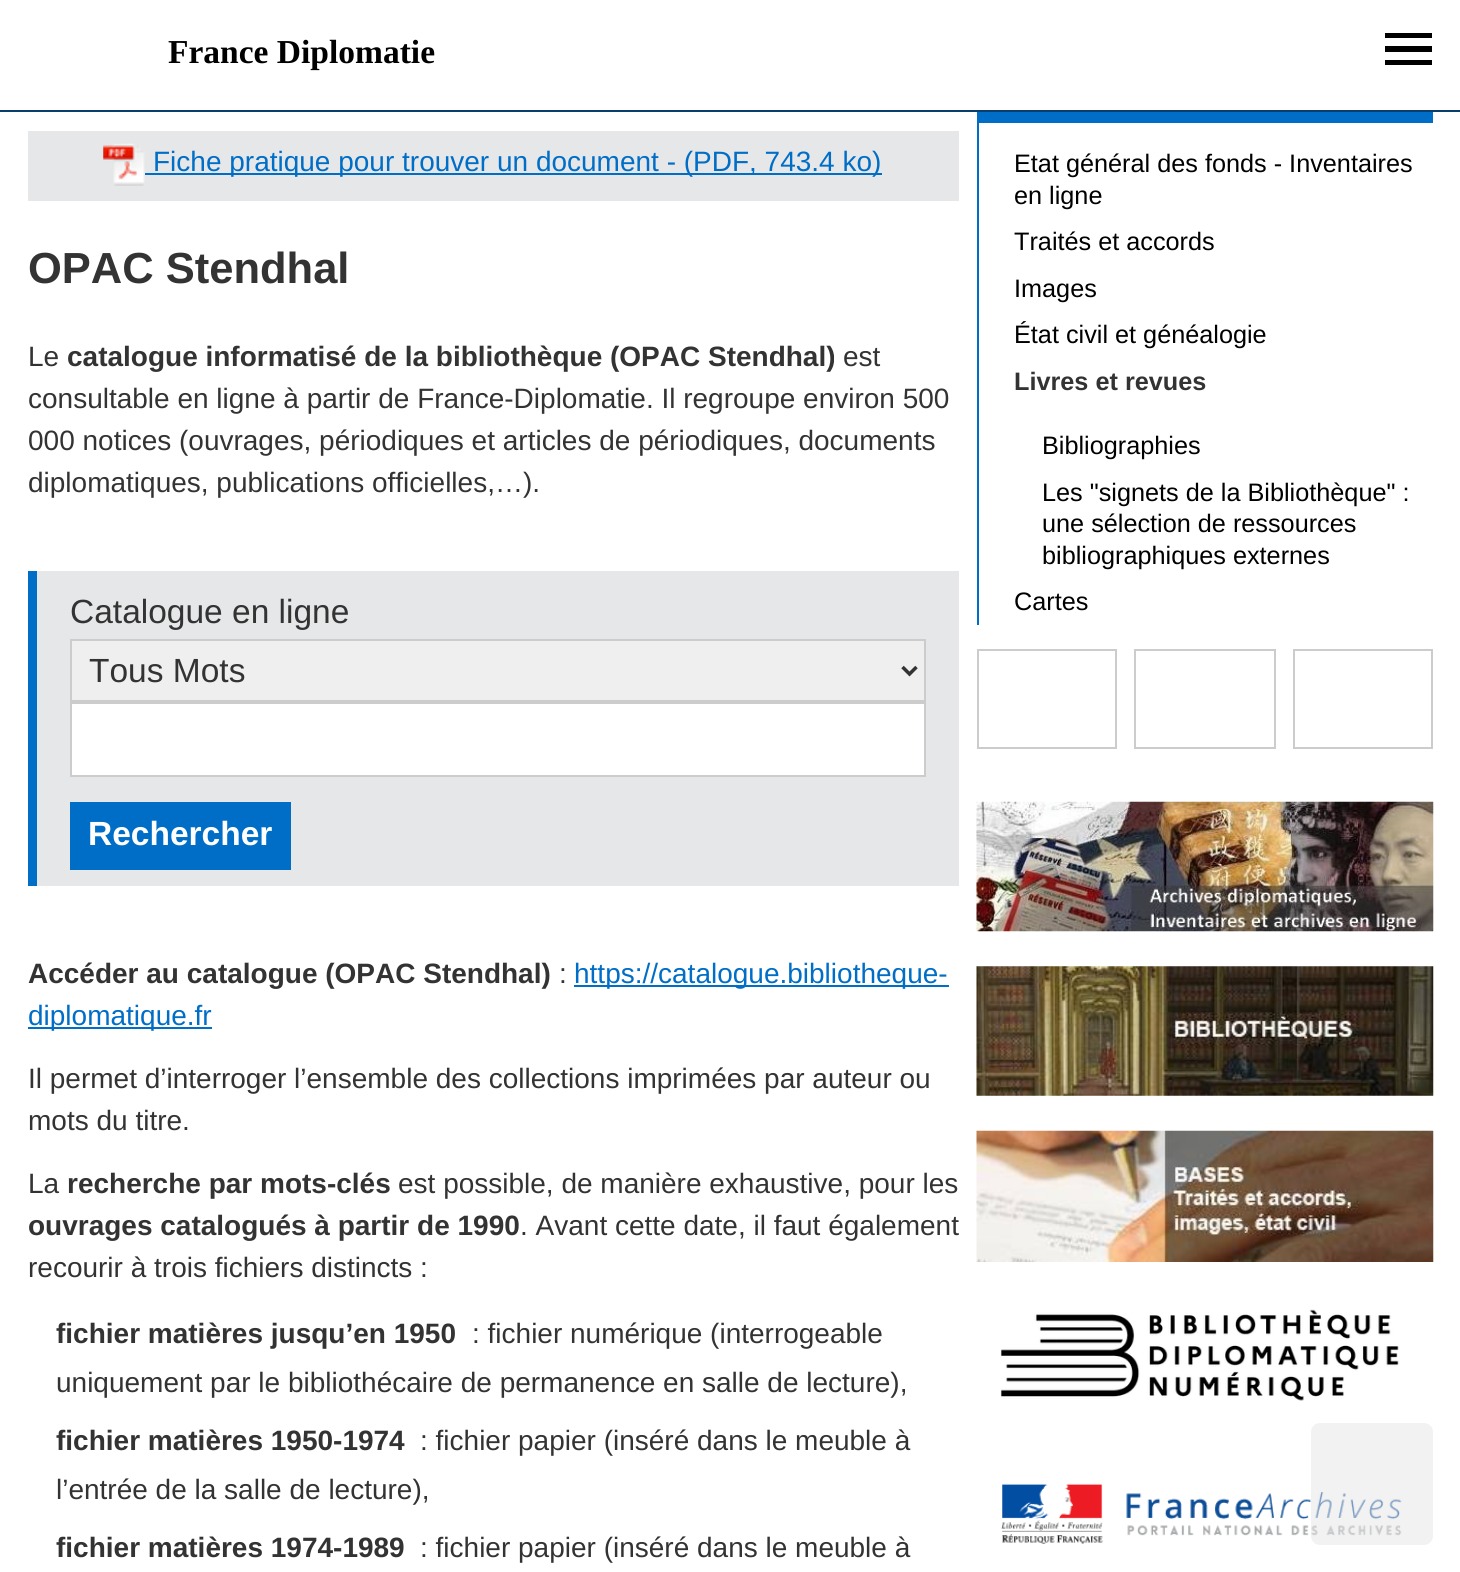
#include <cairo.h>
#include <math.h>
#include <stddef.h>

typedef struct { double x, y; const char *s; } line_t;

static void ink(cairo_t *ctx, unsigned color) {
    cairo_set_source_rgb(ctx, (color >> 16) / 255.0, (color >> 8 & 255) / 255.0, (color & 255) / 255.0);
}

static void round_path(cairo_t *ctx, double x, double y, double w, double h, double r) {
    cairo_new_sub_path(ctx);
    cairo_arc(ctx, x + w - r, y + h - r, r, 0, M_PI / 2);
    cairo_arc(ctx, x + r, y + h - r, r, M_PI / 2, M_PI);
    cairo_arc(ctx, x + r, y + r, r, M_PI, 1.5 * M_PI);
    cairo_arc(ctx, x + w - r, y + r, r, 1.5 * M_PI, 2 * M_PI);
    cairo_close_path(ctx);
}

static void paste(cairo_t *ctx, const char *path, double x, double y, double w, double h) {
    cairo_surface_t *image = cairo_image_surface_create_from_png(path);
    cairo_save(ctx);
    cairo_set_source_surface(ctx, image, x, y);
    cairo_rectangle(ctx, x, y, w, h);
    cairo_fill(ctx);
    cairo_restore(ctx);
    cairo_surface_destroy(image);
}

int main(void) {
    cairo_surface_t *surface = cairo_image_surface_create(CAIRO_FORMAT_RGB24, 1460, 1572);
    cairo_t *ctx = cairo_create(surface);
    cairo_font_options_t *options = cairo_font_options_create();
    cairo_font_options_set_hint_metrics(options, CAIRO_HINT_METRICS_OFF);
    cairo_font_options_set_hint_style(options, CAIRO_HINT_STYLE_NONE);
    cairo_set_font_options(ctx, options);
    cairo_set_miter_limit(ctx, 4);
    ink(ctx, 0xFFFFFF);
    cairo_paint(ctx);
    ink(ctx, 0x083E6C);
    cairo_rectangle(ctx, 0, 110, 1460, 2);
    cairo_fill(ctx);
    cairo_select_font_face(ctx, "Liberation Serif", CAIRO_FONT_SLANT_NORMAL, CAIRO_FONT_WEIGHT_BOLD);
    cairo_set_font_size(ctx, 33.5);
    ink(ctx, 0x000000);
    cairo_move_to(ctx, 168, 63);
    cairo_show_text(ctx, "France Diplomatie");
    cairo_new_path(ctx);
    cairo_move_to(ctx, 1385, 65);
    cairo_line_to(ctx, 1432, 65);
    cairo_line_to(ctx, 1432, 60);
    cairo_line_to(ctx, 1385, 60);
    cairo_close_path(ctx);
    cairo_move_to(ctx, 1385, 38);
    cairo_line_to(ctx, 1432, 38);
    cairo_line_to(ctx, 1432, 33);
    cairo_line_to(ctx, 1385, 33);
    cairo_close_path(ctx);
    cairo_move_to(ctx, 1385, 52);
    cairo_line_to(ctx, 1432, 52);
    cairo_line_to(ctx, 1432, 46);
    cairo_line_to(ctx, 1385, 46);
    cairo_close_path(ctx);
    cairo_fill(ctx);
    ink(ctx, 0xE6E7E8);
    cairo_rectangle(ctx, 28, 131, 931, 70);
    cairo_fill(ctx);
    paste(ctx, "media/1.png", 103, 143, 42, 43);
    ink(ctx, 0x006EC7);
    cairo_rectangle(ctx, 145, 173, 737, 2);
    cairo_fill(ctx);
    cairo_select_font_face(ctx, "Liberation Sans", CAIRO_FONT_SLANT_NORMAL, CAIRO_FONT_WEIGHT_NORMAL);
    cairo_set_font_size(ctx, 28);
    cairo_move_to(ctx, 153, 171);
    cairo_show_text(ctx, "Fiche pratique pour trouver un document - (PDF, 743.4 ko)");
    cairo_select_font_face(ctx, "Liberation Sans", CAIRO_FONT_SLANT_NORMAL, CAIRO_FONT_WEIGHT_BOLD);
    cairo_set_font_size(ctx, 43.5);
    ink(ctx, 0x333333);
    cairo_move_to(ctx, 28, 283);
    cairo_show_text(ctx, "OPAC Stendhal");
    cairo_select_font_face(ctx, "Liberation Sans", CAIRO_FONT_SLANT_NORMAL, CAIRO_FONT_WEIGHT_NORMAL);
    cairo_set_font_size(ctx, 28);
    cairo_move_to(ctx, 28, 366);
    cairo_show_text(ctx, "Le");
    cairo_select_font_face(ctx, "Liberation Sans", CAIRO_FONT_SLANT_NORMAL, CAIRO_FONT_WEIGHT_BOLD);
    cairo_move_to(ctx, 67, 366);
    cairo_show_text(ctx, "catalogue informatisé de la bibliothèque (OPAC Stendhal)");
    cairo_select_font_face(ctx, "Liberation Sans", CAIRO_FONT_SLANT_NORMAL, CAIRO_FONT_WEIGHT_NORMAL);
    {
        static const line_t items[] = {
            {843, 366, "est"},
            {28, 408, "consultable en ligne à partir de France-Diplomatie. Il regroupe environ 500"},
            {28, 450, "000 notices (ouvrages, périodiques et articles de périodiques, documents"},
            {28, 492, "diplomatiques, publications officielles,…)."},
        };
        for (size_t i = 0; i < sizeof items / sizeof *items; i++) {
            cairo_move_to(ctx, items[i].x, items[i].y);
            cairo_show_text(ctx, items[i].s);
        }
    }
    ink(ctx, 0xE6E7E8);
    cairo_rectangle(ctx, 37, 571, 922, 315);
    cairo_fill(ctx);
    ink(ctx, 0x006EC7);
    cairo_rectangle(ctx, 28, 571, 9, 315);
    cairo_fill(ctx);
    cairo_set_font_size(ctx, 33.5);
    ink(ctx, 0x333333);
    cairo_move_to(ctx, 70, 623);
    cairo_show_text(ctx, "Catalogue en ligne");
    ink(ctx, 0xEFEFEF);
    cairo_rectangle(ctx, 71, 640, 854, 61);
    cairo_fill_preserve(ctx);
    ink(ctx, 0xCCCCCC);
    cairo_stroke(ctx);
    cairo_new_path(ctx);
    cairo_move_to(ctx, 902.5, 667);
    cairo_line_to(ctx, 909.5, 674);
    cairo_line_to(ctx, 916.5, 667);
    ink(ctx, 0x333333);
    cairo_set_line_width(ctx, 3.5);
    cairo_stroke(ctx);
    cairo_move_to(ctx, 89, 682);
    cairo_show_text(ctx, "Tous Mots");
    ink(ctx, 0xFFFFFF);
    cairo_rectangle(ctx, 71, 703, 854, 73);
    cairo_fill_preserve(ctx);
    ink(ctx, 0xCCCCCC);
    cairo_set_line_width(ctx, 2);
    cairo_stroke(ctx);
    ink(ctx, 0x006EC7);
    cairo_rectangle(ctx, 70, 802, 221, 68);
    cairo_fill(ctx);
    cairo_select_font_face(ctx, "Liberation Sans", CAIRO_FONT_SLANT_NORMAL, CAIRO_FONT_WEIGHT_BOLD);
    ink(ctx, 0xFFFFFF);
    cairo_move_to(ctx, 88, 845);
    cairo_show_text(ctx, "Rechercher");
    cairo_set_font_size(ctx, 28);
    ink(ctx, 0x333333);
    cairo_move_to(ctx, 28, 983);
    cairo_show_text(ctx, "Accéder au catalogue (OPAC Stendhal)");
    cairo_select_font_face(ctx, "Liberation Sans", CAIRO_FONT_SLANT_NORMAL, CAIRO_FONT_WEIGHT_NORMAL);
    cairo_move_to(ctx, 559, 983);
    cairo_show_text(ctx, ":");
    ink(ctx, 0x006EC7);
    cairo_rectangle(ctx, 574, 985, 375, 2);
    cairo_fill(ctx);
    cairo_move_to(ctx, 574, 983);
    cairo_show_text(ctx, "https://catalogue.bibliotheque-");
    cairo_rectangle(ctx, 28, 1027, 184, 2);
    cairo_fill(ctx);
    cairo_move_to(ctx, 28, 1025);
    cairo_show_text(ctx, "diplomatique.fr");
    ink(ctx, 0x333333);
    {
        static const line_t items[] = {
            {28, 1088, "Il permet d’interroger l’ensemble des collections imprimées par auteur ou"},
            {28, 1130, "mots du titre."},
            {28, 1193, "La"},
        };
        for (size_t i = 0; i < sizeof items / sizeof *items; i++) {
            cairo_move_to(ctx, items[i].x, items[i].y);
            cairo_show_text(ctx, items[i].s);
        }
    }
    cairo_select_font_face(ctx, "Liberation Sans", CAIRO_FONT_SLANT_NORMAL, CAIRO_FONT_WEIGHT_BOLD);
    cairo_move_to(ctx, 67, 1193);
    cairo_show_text(ctx, "recherche par mots-clés");
    cairo_select_font_face(ctx, "Liberation Sans", CAIRO_FONT_SLANT_NORMAL, CAIRO_FONT_WEIGHT_NORMAL);
    cairo_move_to(ctx, 398, 1193);
    cairo_show_text(ctx, "est possible, de manière exhaustive, pour les");
    cairo_select_font_face(ctx, "Liberation Sans", CAIRO_FONT_SLANT_NORMAL, CAIRO_FONT_WEIGHT_BOLD);
    cairo_move_to(ctx, 28, 1235);
    cairo_show_text(ctx, "ouvrages catalogués à partir de 1990");
    cairo_select_font_face(ctx, "Liberation Sans", CAIRO_FONT_SLANT_NORMAL, CAIRO_FONT_WEIGHT_NORMAL);
    cairo_move_to(ctx, 520, 1235);
    cairo_show_text(ctx, ". Avant cette date, il faut également");
    cairo_move_to(ctx, 28, 1277);
    cairo_show_text(ctx, "recourir à trois fichiers distincts :");
    cairo_select_font_face(ctx, "Liberation Sans", CAIRO_FONT_SLANT_NORMAL, CAIRO_FONT_WEIGHT_BOLD);
    cairo_move_to(ctx, 56, 1343);
    cairo_show_text(ctx, "fichier matières jusqu’en 1950");
    cairo_select_font_face(ctx, "Liberation Sans", CAIRO_FONT_SLANT_NORMAL, CAIRO_FONT_WEIGHT_NORMAL);
    cairo_move_to(ctx, 472, 1343);
    cairo_show_text(ctx, ": fichier numérique (interrogeable");
    cairo_move_to(ctx, 56, 1392);
    cairo_show_text(ctx, "uniquement par le bibliothécaire de permanence en salle de lecture),");
    cairo_select_font_face(ctx, "Liberation Sans", CAIRO_FONT_SLANT_NORMAL, CAIRO_FONT_WEIGHT_BOLD);
    cairo_move_to(ctx, 56, 1450);
    cairo_show_text(ctx, "fichier matières 1950-1974");
    cairo_select_font_face(ctx, "Liberation Sans", CAIRO_FONT_SLANT_NORMAL, CAIRO_FONT_WEIGHT_NORMAL);
    cairo_move_to(ctx, 420, 1450);
    cairo_show_text(ctx, ": fichier papier (inséré dans le meuble à");
    cairo_move_to(ctx, 56, 1499);
    cairo_show_text(ctx, "l’entrée de la salle de lecture),");
    cairo_select_font_face(ctx, "Liberation Sans", CAIRO_FONT_SLANT_NORMAL, CAIRO_FONT_WEIGHT_BOLD);
    cairo_move_to(ctx, 56, 1557);
    cairo_show_text(ctx, "fichier matières 1974-1989");
    cairo_select_font_face(ctx, "Liberation Sans", CAIRO_FONT_SLANT_NORMAL, CAIRO_FONT_WEIGHT_NORMAL);
    cairo_move_to(ctx, 420, 1557);
    cairo_show_text(ctx, ": fichier papier (inséré dans le meuble à");
    ink(ctx, 0x006EC7);
    cairo_rectangle(ctx, 977, 112, 2, 513);
    cairo_fill(ctx);
    cairo_rectangle(ctx, 979, 112, 454, 11);
    cairo_fill(ctx);
    cairo_set_font_size(ctx, 25.25);
    ink(ctx, 0x000000);
    {
        static const line_t items[] = {
            {1014, 172, "Etat général des fonds - Inventaires"},
            {1014, 204, "en ligne"},
            {1014, 250, "Traités et accords"},
            {1014, 297, "Images"},
            {1014, 343, "État civil et généalogie"},
        };
        for (size_t i = 0; i < sizeof items / sizeof *items; i++) {
            cairo_move_to(ctx, items[i].x, items[i].y);
            cairo_show_text(ctx, items[i].s);
        }
    }
    cairo_select_font_face(ctx, "Liberation Sans", CAIRO_FONT_SLANT_NORMAL, CAIRO_FONT_WEIGHT_BOLD);
    ink(ctx, 0x333333);
    cairo_move_to(ctx, 1014, 390);
    cairo_show_text(ctx, "Livres et revues");
    cairo_select_font_face(ctx, "Liberation Sans", CAIRO_FONT_SLANT_NORMAL, CAIRO_FONT_WEIGHT_NORMAL);
    ink(ctx, 0x000000);
    {
        static const line_t items[] = {
            {1042, 454, "Bibliographies"},
            {1042, 501, "Les \"signets de la Bibliothèque\" :"},
            {1042, 532, "une sélection de ressources"},
            {1042, 564, "bibliographiques externes"},
            {1014, 610, "Cartes"},
        };
        for (size_t i = 0; i < sizeof items / sizeof *items; i++) {
            cairo_move_to(ctx, items[i].x, items[i].y);
            cairo_show_text(ctx, items[i].s);
        }
    }
    cairo_rectangle(ctx, 978, 650, 138, 98);
    ink(ctx, 0xCCCCCC);
    cairo_stroke(ctx);
    cairo_rectangle(ctx, 1135, 650, 140, 98);
    cairo_stroke(ctx);
    cairo_rectangle(ctx, 1294, 650, 138, 98);
    cairo_stroke(ctx);
    paste(ctx, "media/2.png", 976, 801, 458, 131);
    paste(ctx, "media/3.png", 976, 966, 458, 130);
    paste(ctx, "media/4.png", 976, 1130, 458, 132);
    paste(ctx, "media/5.png", 1000, 1309, 399, 92);
    paste(ctx, "media/6.png", 1001, 1483, 401, 61);
    cairo_set_source_rgba(ctx, 0.902, 0.906, 0.91, 0.5);
    round_path(ctx, 1311, 1423, 122, 122, 9);
    cairo_fill(ctx);
    cairo_surface_write_to_png(surface, "image.png");
    cairo_font_options_destroy(options);
    cairo_destroy(ctx);
    cairo_surface_destroy(surface);
    return 0;
}
